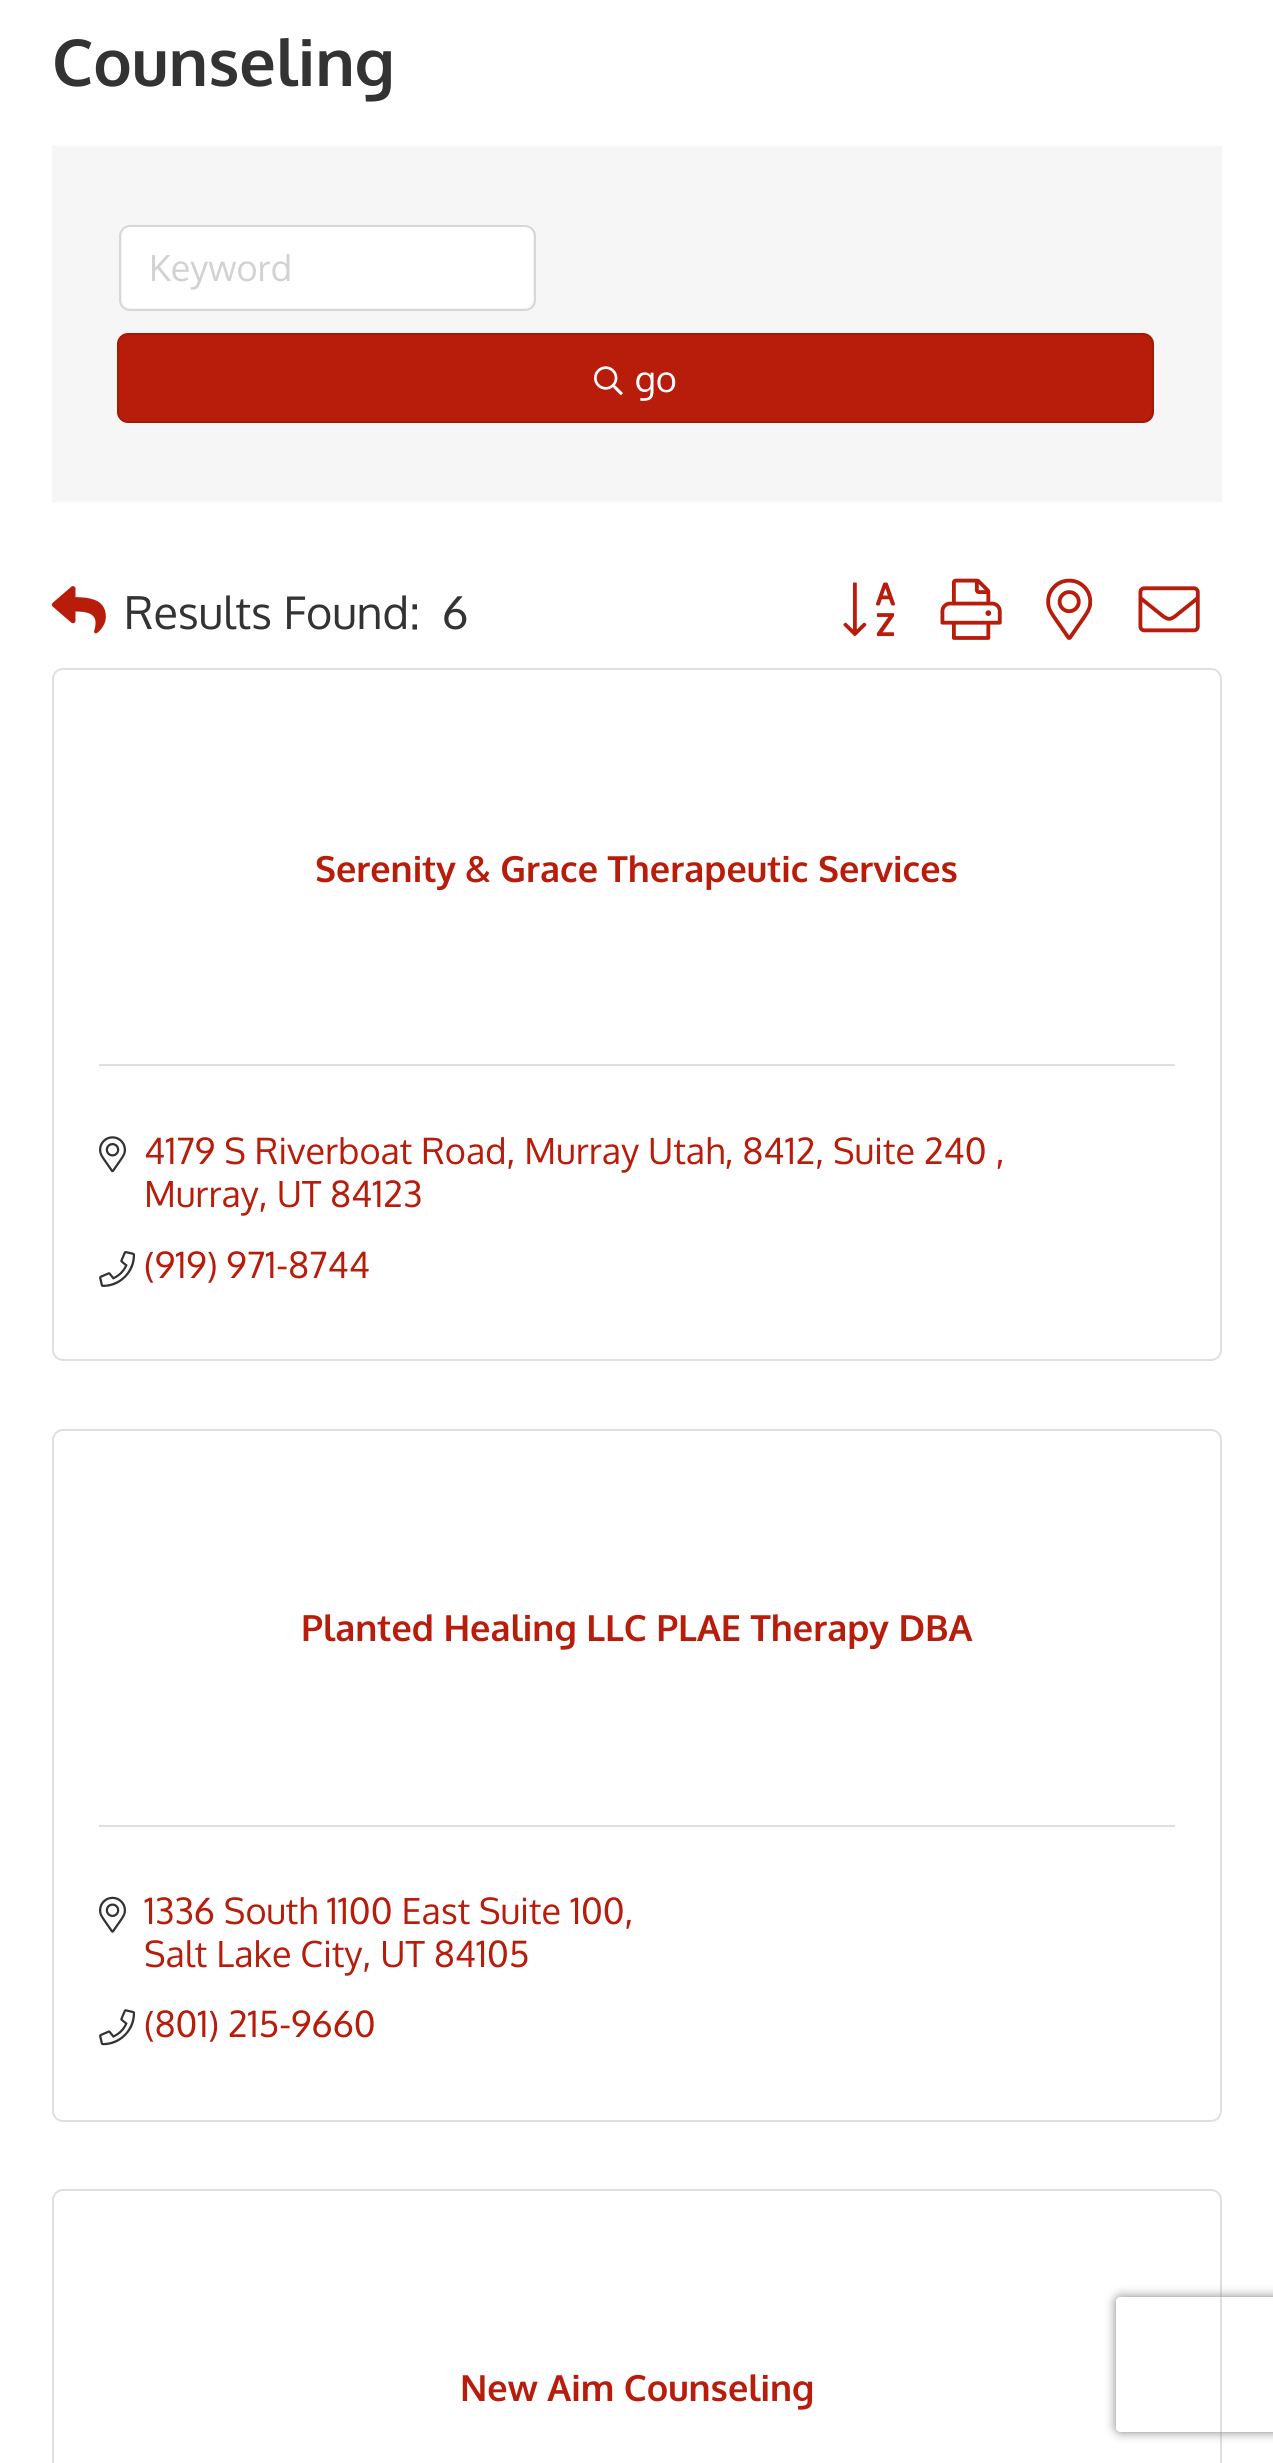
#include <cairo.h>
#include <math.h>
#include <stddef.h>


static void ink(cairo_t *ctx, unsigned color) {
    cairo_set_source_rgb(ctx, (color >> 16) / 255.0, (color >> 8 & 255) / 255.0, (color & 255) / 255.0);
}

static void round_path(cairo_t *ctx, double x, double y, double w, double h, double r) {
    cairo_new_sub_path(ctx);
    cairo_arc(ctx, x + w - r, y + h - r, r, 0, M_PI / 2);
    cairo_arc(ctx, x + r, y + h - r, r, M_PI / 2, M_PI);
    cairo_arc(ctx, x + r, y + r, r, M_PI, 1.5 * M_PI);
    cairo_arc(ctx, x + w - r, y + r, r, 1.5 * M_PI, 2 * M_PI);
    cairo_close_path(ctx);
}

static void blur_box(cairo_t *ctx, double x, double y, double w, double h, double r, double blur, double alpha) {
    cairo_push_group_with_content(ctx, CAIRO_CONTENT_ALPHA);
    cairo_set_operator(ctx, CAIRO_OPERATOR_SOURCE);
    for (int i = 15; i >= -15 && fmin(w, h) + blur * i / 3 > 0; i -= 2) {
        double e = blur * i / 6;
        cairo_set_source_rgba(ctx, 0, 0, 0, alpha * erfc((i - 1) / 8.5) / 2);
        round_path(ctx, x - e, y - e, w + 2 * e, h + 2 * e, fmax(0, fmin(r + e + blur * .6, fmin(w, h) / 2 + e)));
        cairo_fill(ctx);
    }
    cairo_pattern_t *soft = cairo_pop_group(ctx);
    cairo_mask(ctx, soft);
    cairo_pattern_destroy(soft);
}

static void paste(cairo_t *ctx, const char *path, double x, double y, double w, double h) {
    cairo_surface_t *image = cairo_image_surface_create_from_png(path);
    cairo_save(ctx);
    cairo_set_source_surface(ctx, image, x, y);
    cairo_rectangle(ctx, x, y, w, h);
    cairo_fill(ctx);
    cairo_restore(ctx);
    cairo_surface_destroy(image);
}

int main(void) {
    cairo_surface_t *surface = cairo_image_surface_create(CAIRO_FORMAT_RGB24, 1273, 2463);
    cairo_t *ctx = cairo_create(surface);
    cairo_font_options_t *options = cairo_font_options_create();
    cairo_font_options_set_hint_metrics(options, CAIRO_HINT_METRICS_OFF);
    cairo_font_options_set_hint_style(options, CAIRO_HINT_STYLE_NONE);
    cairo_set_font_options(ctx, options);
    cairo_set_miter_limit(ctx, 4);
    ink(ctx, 0xFFFFFF);
    cairo_paint(ctx);
    cairo_select_font_face(ctx, "Oxygen", CAIRO_FONT_SLANT_NORMAL, CAIRO_FONT_WEIGHT_BOLD);
    cairo_set_font_size(ctx, 64.75);
    ink(ctx, 0x333333);
    cairo_move_to(ctx, 52, 86);
    cairo_show_text(ctx, "Counseling");
    ink(ctx, 0xF6F6F6);
    cairo_rectangle(ctx, 52, 146, 1170, 356);
    cairo_fill(ctx);
    ink(ctx, 0xFFFFFF);
    round_path(ctx, 122, 227, 411, 81, 9);
    cairo_fill(ctx);
    round_path(ctx, 120, 226, 415, 84, 10);
    ink(ctx, 0xD7D7D7);
    cairo_stroke(ctx);
    cairo_select_font_face(ctx, "Oxygen", CAIRO_FONT_SLANT_NORMAL, CAIRO_FONT_WEIGHT_NORMAL);
    cairo_set_font_size(ctx, 36);
    ink(ctx, 0xD2D2D2);
    cairo_move_to(ctx, 149, 281);
    cairo_show_text(ctx, "Keyword");
    ink(ctx, 0xB81C0B);
    round_path(ctx, 117, 333, 1037, 90, 11);
    cairo_fill(ctx);
    round_path(ctx, 118, 334, 1035, 88, 10);
    cairo_set_source_rgba(ctx, 0, 0, 0, 0.12);
    cairo_stroke(ctx);
    paste(ctx, "media/1.png", 594, 366, 29, 30);
    ink(ctx, 0xFFFFFF);
    cairo_move_to(ctx, 635, 392);
    cairo_show_text(ctx, "go");
    paste(ctx, "media/2.png", 51, 586, 55, 48);
    cairo_set_font_size(ctx, 45);
    ink(ctx, 0x333333);
    cairo_move_to(ctx, 124, 629);
    cairo_show_text(ctx, "Results Found:");
    cairo_move_to(ctx, 442, 629);
    cairo_show_text(ctx, "6");
    paste(ctx, "media/3.png", 843, 582, 52, 55);
    paste(ctx, "media/4.png", 940, 578, 62, 62);
    paste(ctx, "media/5.png", 1046, 578, 47, 62);
    paste(ctx, "media/6.png", 1138, 586, 62, 47);
    round_path(ctx, 53, 669, 1168, 691, 10);
    ink(ctx, 0xDFDFDF);
    cairo_stroke(ctx);
    cairo_select_font_face(ctx, "Oxygen", CAIRO_FONT_SLANT_NORMAL, CAIRO_FONT_WEIGHT_BOLD);
    cairo_set_font_size(ctx, 36);
    ink(ctx, 0xB81C0B);
    cairo_move_to(ctx, 315, 882);
    cairo_show_text(ctx, "Serenity & Grace Therapeutic Services");
    ink(ctx, 0xDFDFDF);
    cairo_rectangle(ctx, 99, 1064, 1076, 2);
    cairo_fill(ctx);
    paste(ctx, "media/7.png", 99, 1136, 27, 37);
    cairo_select_font_face(ctx, "Oxygen", CAIRO_FONT_SLANT_NORMAL, CAIRO_FONT_WEIGHT_NORMAL);
    ink(ctx, 0xB81C0B);
    cairo_move_to(ctx, 144, 1164);
    cairo_show_text(ctx, "4179 S Riverboat Road, Murray Utah, 8412, Suite 240 ,");
    cairo_move_to(ctx, 144, 1207);
    cairo_show_text(ctx, "Murray, UT 84123");
    paste(ctx, "media/8.png", 99, 1251, 37, 36);
    cairo_move_to(ctx, 144, 1278);
    cairo_show_text(ctx, "(919) 971-8744");
    round_path(ctx, 53, 1430, 1168, 691, 10);
    ink(ctx, 0xDFDFDF);
    cairo_stroke(ctx);
    cairo_select_font_face(ctx, "Oxygen", CAIRO_FONT_SLANT_NORMAL, CAIRO_FONT_WEIGHT_BOLD);
    ink(ctx, 0xB81C0B);
    cairo_move_to(ctx, 301, 1641);
    cairo_show_text(ctx, "Planted Healing LLC PLAE Therapy DBA");
    ink(ctx, 0xDFDFDF);
    cairo_rectangle(ctx, 99, 1825, 1076, 2);
    cairo_fill(ctx);
    paste(ctx, "media/9.png", 99, 1896, 27, 37);
    cairo_select_font_face(ctx, "Oxygen", CAIRO_FONT_SLANT_NORMAL, CAIRO_FONT_WEIGHT_NORMAL);
    ink(ctx, 0xB81C0B);
    cairo_move_to(ctx, 144, 1924);
    cairo_show_text(ctx, "1336 South 1100 East Suite 100,");
    cairo_move_to(ctx, 144, 1967);
    cairo_show_text(ctx, "Salt Lake City, UT 84105");
    paste(ctx, "media/10.png", 99, 2009, 37, 37);
    cairo_move_to(ctx, 144, 2037);
    cairo_show_text(ctx, "(801) 215-9660");
    round_path(ctx, 53, 2190, 1168, 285, 10);
    ink(ctx, 0xDFDFDF);
    cairo_stroke(ctx);
    cairo_select_font_face(ctx, "Oxygen", CAIRO_FONT_SLANT_NORMAL, CAIRO_FONT_WEIGHT_BOLD);
    ink(ctx, 0xB81C0B);
    cairo_move_to(ctx, 460, 2401);
    cairo_show_text(ctx, "New Aim Counseling");
    cairo_save(ctx);
    cairo_set_fill_rule(ctx, CAIRO_FILL_RULE_EVEN_ODD);
    cairo_new_path(ctx);
    cairo_move_to(ctx, 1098, 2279);
    cairo_line_to(ctx, 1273, 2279);
    cairo_line_to(ctx, 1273, 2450);
    cairo_line_to(ctx, 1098, 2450);
    cairo_close_path(ctx);
    cairo_move_to(ctx, 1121, 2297);
    cairo_line_to(ctx, 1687, 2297);
    cairo_curve_to(ctx, 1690, 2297, 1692, 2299, 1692, 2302);
    cairo_line_to(ctx, 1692, 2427);
    cairo_curve_to(ctx, 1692, 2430, 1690, 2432, 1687, 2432);
    cairo_line_to(ctx, 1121, 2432);
    cairo_curve_to(ctx, 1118, 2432, 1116, 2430, 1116, 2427);
    cairo_line_to(ctx, 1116, 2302);
    cairo_curve_to(ctx, 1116, 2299, 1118, 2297, 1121, 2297);
    cairo_close_path(ctx);
    cairo_clip(ctx);
    ink(ctx, 0x808080);
    blur_box(ctx, 1116, 2297, 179, 135, 5, 5.5, 1);
    cairo_restore(ctx);
    cairo_surface_write_to_png(surface, "image.png");
    cairo_font_options_destroy(options);
    cairo_destroy(ctx);
    cairo_surface_destroy(surface);
    return 0;
}
